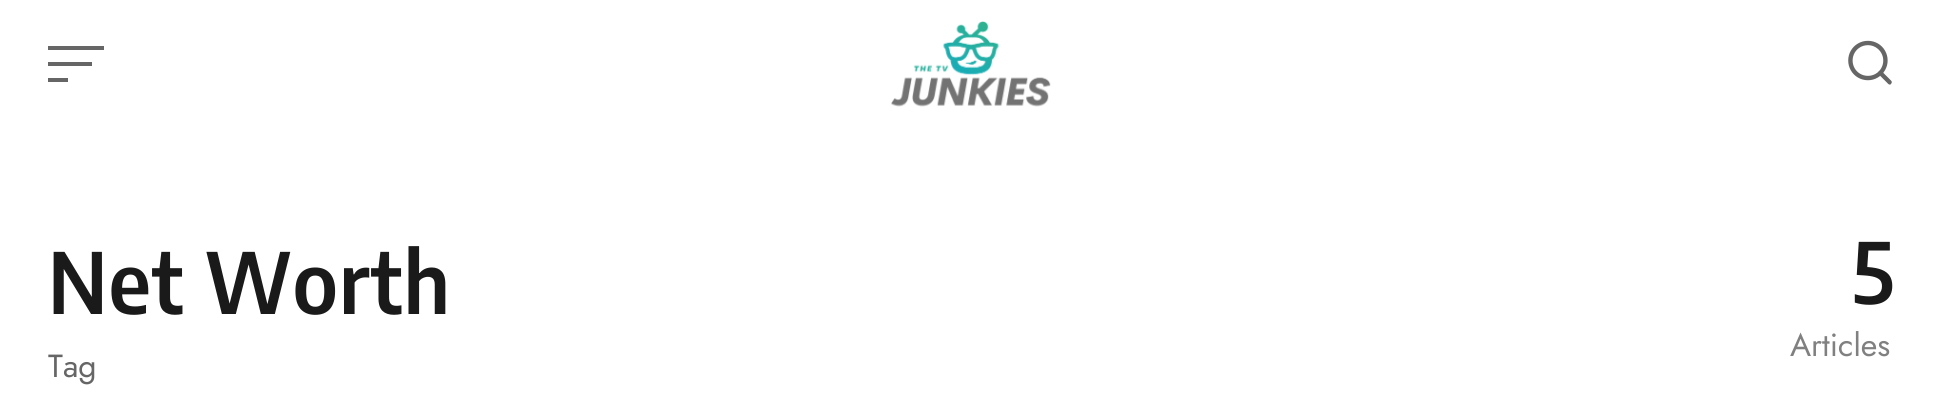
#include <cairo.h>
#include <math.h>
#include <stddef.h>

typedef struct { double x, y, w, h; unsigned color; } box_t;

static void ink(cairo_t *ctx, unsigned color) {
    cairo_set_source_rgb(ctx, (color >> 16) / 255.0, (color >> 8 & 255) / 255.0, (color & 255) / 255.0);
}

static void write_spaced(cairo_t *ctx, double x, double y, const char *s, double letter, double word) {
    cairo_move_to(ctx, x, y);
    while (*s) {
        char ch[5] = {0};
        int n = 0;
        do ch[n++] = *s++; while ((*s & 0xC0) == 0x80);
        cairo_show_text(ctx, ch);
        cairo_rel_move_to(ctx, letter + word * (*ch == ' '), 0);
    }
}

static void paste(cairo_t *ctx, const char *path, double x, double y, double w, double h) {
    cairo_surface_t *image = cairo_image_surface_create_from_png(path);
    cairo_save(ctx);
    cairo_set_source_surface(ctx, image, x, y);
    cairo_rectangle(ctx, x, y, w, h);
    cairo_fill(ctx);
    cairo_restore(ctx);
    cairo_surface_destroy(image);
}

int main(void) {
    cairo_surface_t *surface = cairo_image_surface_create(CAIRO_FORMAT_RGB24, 1942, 394);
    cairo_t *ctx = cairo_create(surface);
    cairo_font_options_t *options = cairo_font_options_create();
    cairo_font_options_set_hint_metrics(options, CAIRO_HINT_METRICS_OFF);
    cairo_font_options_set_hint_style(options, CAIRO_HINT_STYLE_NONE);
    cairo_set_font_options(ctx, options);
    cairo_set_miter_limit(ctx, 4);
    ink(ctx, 0xFFFFFF);
    cairo_paint(ctx);
    {
        static const box_t items[] = {
            {48, 46, 56, 4, 0x666666},
            {48, 62, 44, 4, 0x666666},
            {48, 78, 20, 4, 0x666666},
        };
        for (size_t i = 0; i < sizeof items / sizeof *items; i++) {
            ink(ctx, items[i].color);
            cairo_rectangle(ctx, items[i].x, items[i].y, items[i].w, items[i].h);
            cairo_fill(ctx);
        }
    }
    paste(ctx, "media/1.png", 891, 21, 160, 86);
    paste(ctx, "media/2.png", 1848, 40, 44, 45);
    cairo_select_font_face(ctx, "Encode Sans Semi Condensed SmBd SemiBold", CAIRO_FONT_SLANT_NORMAL, CAIRO_FONT_WEIGHT_NORMAL);
    cairo_set_font_size(ctx, 84);
    ink(ctx, 0x1A1A1A);
    write_spaced(ctx, 48, 314, "Net Worth", 1, 0);
    cairo_select_font_face(ctx, "Jost", CAIRO_FONT_SLANT_NORMAL, CAIRO_FONT_WEIGHT_NORMAL);
    cairo_set_font_size(ctx, 32);
    ink(ctx, 0x666666);
    cairo_move_to(ctx, 48, 377);
    cairo_show_text(ctx, "Tag");
    cairo_select_font_face(ctx, "Encode Sans Semi Condensed SmBd SemiBold", CAIRO_FONT_SLANT_NORMAL, CAIRO_FONT_WEIGHT_NORMAL);
    cairo_set_font_size(ctx, 84);
    ink(ctx, 0x1A1A1A);
    cairo_move_to(ctx, 1852, 304);
    cairo_show_text(ctx, "5");
    cairo_select_font_face(ctx, "Jost", CAIRO_FONT_SLANT_NORMAL, CAIRO_FONT_WEIGHT_NORMAL);
    cairo_set_font_size(ctx, 32);
    ink(ctx, 0x808080);
    cairo_move_to(ctx, 1790, 356);
    cairo_show_text(ctx, "Articles");
    cairo_surface_write_to_png(surface, "image.png");
    cairo_font_options_destroy(options);
    cairo_destroy(ctx);
    cairo_surface_destroy(surface);
    return 0;
}
